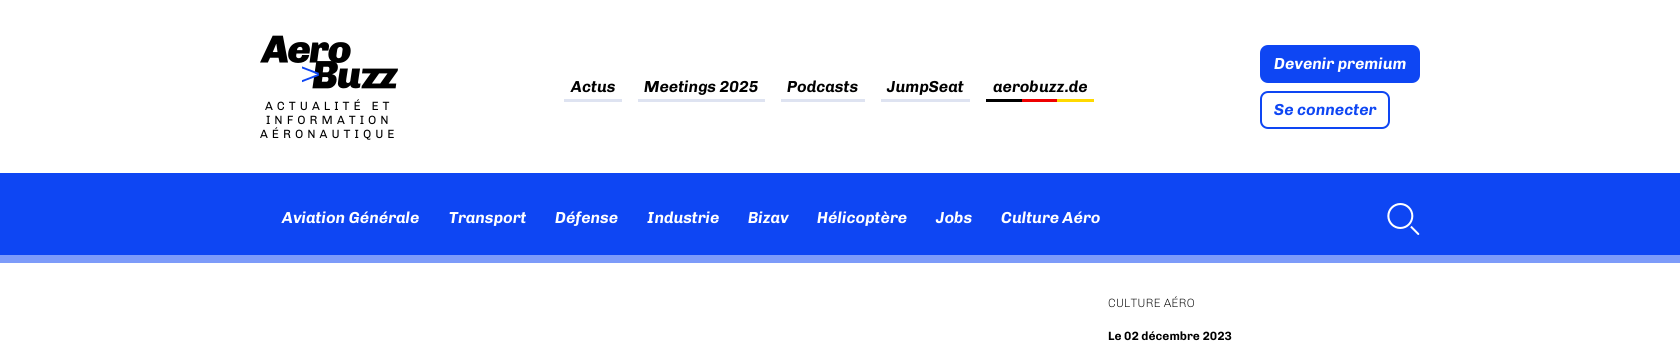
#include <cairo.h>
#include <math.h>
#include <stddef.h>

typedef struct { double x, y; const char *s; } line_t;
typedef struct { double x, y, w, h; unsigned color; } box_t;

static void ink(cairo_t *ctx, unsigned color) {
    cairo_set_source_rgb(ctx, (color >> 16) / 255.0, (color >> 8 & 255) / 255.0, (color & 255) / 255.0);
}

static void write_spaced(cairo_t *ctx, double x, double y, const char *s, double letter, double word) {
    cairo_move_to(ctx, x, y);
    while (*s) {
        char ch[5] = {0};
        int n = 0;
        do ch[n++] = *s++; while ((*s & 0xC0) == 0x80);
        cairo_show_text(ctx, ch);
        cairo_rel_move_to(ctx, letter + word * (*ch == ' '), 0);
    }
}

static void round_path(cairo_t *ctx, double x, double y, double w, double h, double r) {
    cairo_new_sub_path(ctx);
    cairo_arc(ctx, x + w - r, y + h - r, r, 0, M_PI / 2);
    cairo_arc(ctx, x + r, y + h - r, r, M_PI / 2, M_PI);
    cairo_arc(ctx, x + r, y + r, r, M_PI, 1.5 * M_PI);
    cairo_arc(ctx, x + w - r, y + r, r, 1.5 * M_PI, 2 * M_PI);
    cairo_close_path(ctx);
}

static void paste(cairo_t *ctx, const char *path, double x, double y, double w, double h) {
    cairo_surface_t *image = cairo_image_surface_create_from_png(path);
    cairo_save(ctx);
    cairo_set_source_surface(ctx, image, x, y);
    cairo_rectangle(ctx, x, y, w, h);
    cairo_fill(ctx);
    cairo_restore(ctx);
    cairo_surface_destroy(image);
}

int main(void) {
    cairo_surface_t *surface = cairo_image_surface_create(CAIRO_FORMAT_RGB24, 1680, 341);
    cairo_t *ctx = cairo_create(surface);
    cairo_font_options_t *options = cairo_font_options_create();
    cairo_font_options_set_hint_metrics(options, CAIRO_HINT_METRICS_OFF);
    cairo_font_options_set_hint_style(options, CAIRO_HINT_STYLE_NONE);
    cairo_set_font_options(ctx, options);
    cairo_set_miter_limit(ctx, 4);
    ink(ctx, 0xFFFFFF);
    cairo_paint(ctx);
    cairo_select_font_face(ctx, "Chivo", CAIRO_FONT_SLANT_ITALIC, CAIRO_FONT_WEIGHT_BOLD);
    cairo_set_font_size(ctx, 16);
    ink(ctx, 0x000000);
    cairo_move_to(ctx, 571, 92);
    cairo_show_text(ctx, "Actus");
    ink(ctx, 0xDEE3F1);
    cairo_rectangle(ctx, 564, 99, 58, 3);
    cairo_fill(ctx);
    ink(ctx, 0x000000);
    cairo_move_to(ctx, 644, 92);
    cairo_show_text(ctx, "Meetings 2025");
    ink(ctx, 0xDEE3F1);
    cairo_rectangle(ctx, 638, 99, 127, 3);
    cairo_fill(ctx);
    ink(ctx, 0x000000);
    cairo_move_to(ctx, 787, 92);
    cairo_show_text(ctx, "Podcasts");
    ink(ctx, 0xDEE3F1);
    cairo_rectangle(ctx, 781, 99, 84, 3);
    cairo_fill(ctx);
    ink(ctx, 0x000000);
    cairo_move_to(ctx, 887, 92);
    cairo_show_text(ctx, "JumpSeat");
    ink(ctx, 0xDEE3F1);
    cairo_rectangle(ctx, 881, 99, 89, 3);
    cairo_fill(ctx);
    ink(ctx, 0x000000);
    cairo_move_to(ctx, 993, 92);
    cairo_show_text(ctx, "aerobuzz.de");
    {
        static const box_t items[] = {
            {986, 99, 36, 3, 0x000000},
            {1022, 99, 35, 3, 0xEE0000},
            {1057, 99, 37, 3, 0xFFD900},
        };
        for (size_t i = 0; i < sizeof items / sizeof *items; i++) {
            ink(ctx, items[i].color);
            cairo_rectangle(ctx, items[i].x, items[i].y, items[i].w, items[i].h);
            cairo_fill(ctx);
        }
    }
    ink(ctx, 0x0E46F3);
    round_path(ctx, 1261, 46, 158, 36, 7);
    cairo_fill_preserve(ctx);
    cairo_stroke(ctx);
    ink(ctx, 0xFFFFFF);
    cairo_move_to(ctx, 1274, 69);
    cairo_show_text(ctx, "Devenir premium");
    round_path(ctx, 1261, 92, 128, 36, 7);
    ink(ctx, 0x0E46F3);
    cairo_stroke(ctx);
    cairo_move_to(ctx, 1274, 115);
    cairo_show_text(ctx, "Se connecter");
    paste(ctx, "media/1.png", 260, 35, 138, 54);
    cairo_select_font_face(ctx, "Chivo", CAIRO_FONT_SLANT_NORMAL, CAIRO_FONT_WEIGHT_NORMAL);
    cairo_set_font_size(ctx, 12);
    ink(ctx, 0x000000);
    {
        static const line_t items[] = {
            {265, 110, "ACTUALITÉ ET"},
            {266, 124, "INFORMATION"},
            {260, 138, "AÉRONAUTIQUE"},
        };
        for (size_t i = 0; i < sizeof items / sizeof *items; i++) {
            write_spaced(ctx, items[i].x, items[i].y, items[i].s, 4, 0);
        }
    }
    ink(ctx, 0x0E46F3);
    cairo_rectangle(ctx, 0, 173, 1680, 82);
    cairo_fill(ctx);
    cairo_select_font_face(ctx, "Chivo", CAIRO_FONT_SLANT_ITALIC, CAIRO_FONT_WEIGHT_BOLD);
    cairo_set_font_size(ctx, 16);
    ink(ctx, 0xFFFFFF);
    {
        static const line_t items[] = {
            {282, 223, "Aviation Générale"},
            {449, 223, "Transport"},
            {555, 223, "Défense"},
            {647, 223, "Industrie"},
            {748, 223, "Bizav"},
            {817, 223, "Hélicoptère"},
            {936, 223, "Jobs"},
            {1001, 223, "Culture Aéro"},
        };
        for (size_t i = 0; i < sizeof items / sizeof *items; i++) {
            cairo_move_to(ctx, items[i].x, items[i].y);
            cairo_show_text(ctx, items[i].s);
        }
    }
    paste(ctx, "media/2.png", 1387, 203, 33, 32);
    ink(ctx, 0x7D9BF9);
    cairo_rectangle(ctx, 0, 255, 1680, 8);
    cairo_fill(ctx);
    cairo_select_font_face(ctx, "Chivo Light", CAIRO_FONT_SLANT_NORMAL, CAIRO_FONT_WEIGHT_NORMAL);
    cairo_set_font_size(ctx, 12);
    ink(ctx, 0x000000);
    cairo_move_to(ctx, 1108, 307);
    cairo_show_text(ctx, "CULTURE AÉRO");
    cairo_select_font_face(ctx, "Chivo", CAIRO_FONT_SLANT_NORMAL, CAIRO_FONT_WEIGHT_BOLD);
    cairo_move_to(ctx, 1108, 340);
    cairo_show_text(ctx, "Le 02 décembre 2023");
    cairo_surface_write_to_png(surface, "image.png");
    cairo_font_options_destroy(options);
    cairo_destroy(ctx);
    cairo_surface_destroy(surface);
    return 0;
}
